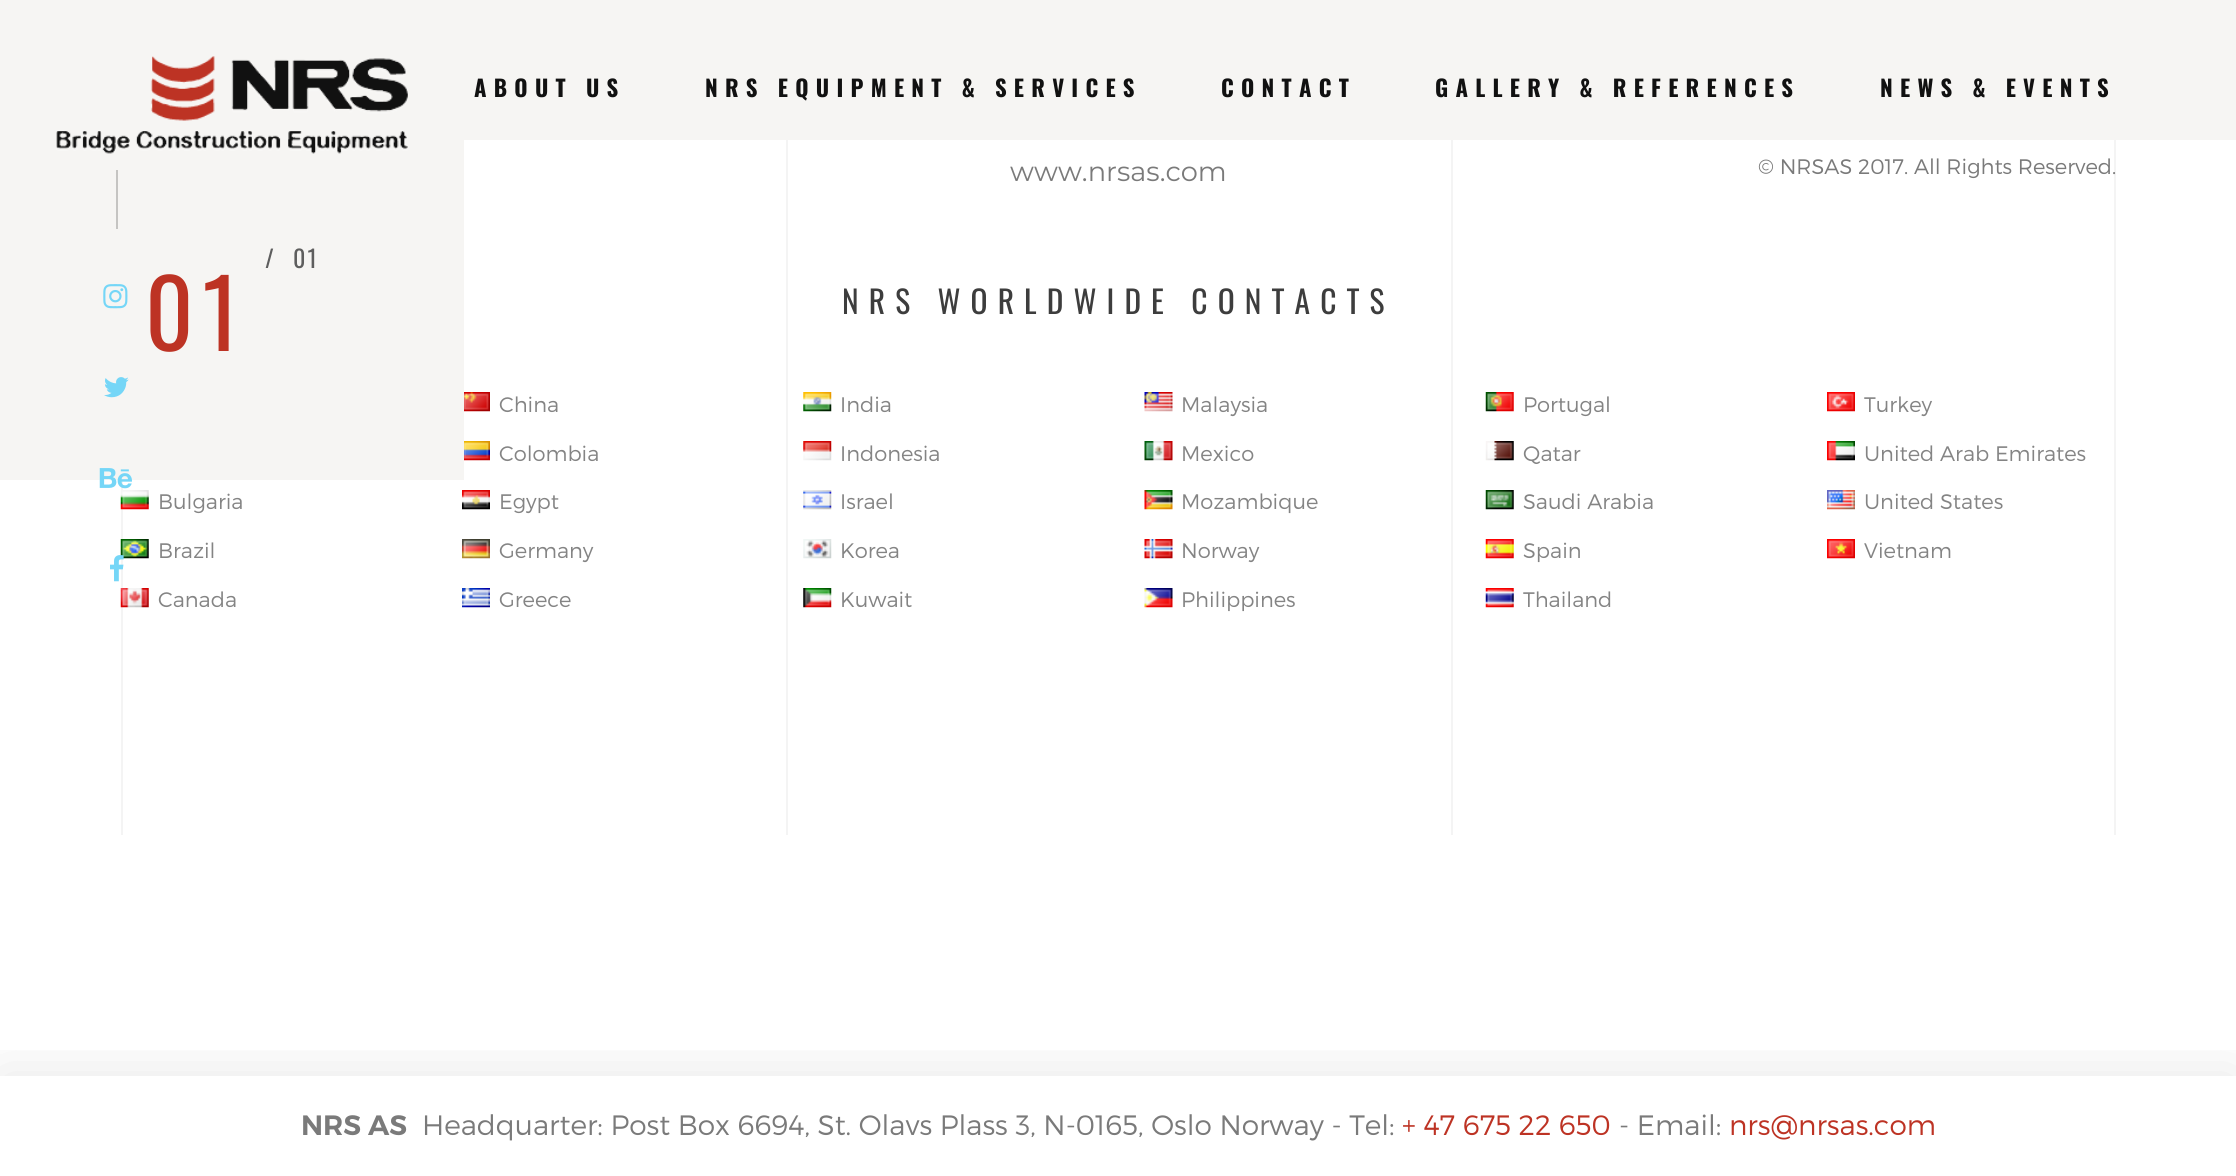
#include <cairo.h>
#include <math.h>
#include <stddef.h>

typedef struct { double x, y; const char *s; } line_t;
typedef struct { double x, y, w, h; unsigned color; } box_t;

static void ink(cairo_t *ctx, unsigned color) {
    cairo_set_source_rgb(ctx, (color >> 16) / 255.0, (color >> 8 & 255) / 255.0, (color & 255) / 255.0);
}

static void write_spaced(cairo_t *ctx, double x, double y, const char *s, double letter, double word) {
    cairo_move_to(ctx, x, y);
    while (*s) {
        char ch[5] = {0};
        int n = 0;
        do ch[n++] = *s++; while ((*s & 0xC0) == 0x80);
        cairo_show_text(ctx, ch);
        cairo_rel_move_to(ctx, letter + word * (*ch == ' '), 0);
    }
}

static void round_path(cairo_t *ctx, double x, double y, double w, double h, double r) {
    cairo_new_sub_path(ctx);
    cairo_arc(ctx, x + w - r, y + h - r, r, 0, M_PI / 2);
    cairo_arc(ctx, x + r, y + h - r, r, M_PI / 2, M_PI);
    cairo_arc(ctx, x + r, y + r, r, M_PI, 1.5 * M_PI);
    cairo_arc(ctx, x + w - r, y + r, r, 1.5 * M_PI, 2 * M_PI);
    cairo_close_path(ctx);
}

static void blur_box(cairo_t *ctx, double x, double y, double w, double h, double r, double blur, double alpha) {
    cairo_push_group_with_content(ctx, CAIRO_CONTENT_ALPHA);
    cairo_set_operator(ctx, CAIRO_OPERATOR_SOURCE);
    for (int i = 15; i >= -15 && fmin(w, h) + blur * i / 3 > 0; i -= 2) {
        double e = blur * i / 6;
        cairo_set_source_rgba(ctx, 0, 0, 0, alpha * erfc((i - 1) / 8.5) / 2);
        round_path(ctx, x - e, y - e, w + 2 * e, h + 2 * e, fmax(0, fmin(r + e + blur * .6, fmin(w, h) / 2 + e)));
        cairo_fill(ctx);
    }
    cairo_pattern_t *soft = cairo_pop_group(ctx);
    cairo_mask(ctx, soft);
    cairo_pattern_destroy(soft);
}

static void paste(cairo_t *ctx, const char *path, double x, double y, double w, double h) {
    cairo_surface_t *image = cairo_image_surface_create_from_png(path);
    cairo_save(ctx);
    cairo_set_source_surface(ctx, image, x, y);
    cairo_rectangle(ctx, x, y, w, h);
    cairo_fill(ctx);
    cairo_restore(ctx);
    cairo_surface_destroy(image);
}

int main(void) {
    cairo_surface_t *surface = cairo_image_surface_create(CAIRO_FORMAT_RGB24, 2236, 1176);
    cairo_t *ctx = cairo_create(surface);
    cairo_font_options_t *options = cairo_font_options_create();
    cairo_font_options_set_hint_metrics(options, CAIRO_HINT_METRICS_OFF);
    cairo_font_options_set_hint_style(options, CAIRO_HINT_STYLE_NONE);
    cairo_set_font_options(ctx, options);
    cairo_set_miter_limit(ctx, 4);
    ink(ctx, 0xFFFFFF);
    cairo_paint(ctx);
    ink(ctx, 0xF6F5F3);
    cairo_rectangle(ctx, 464, 0, 1772, 140);
    cairo_fill(ctx);
    cairo_select_font_face(ctx, "Oswald", CAIRO_FONT_SLANT_NORMAL, CAIRO_FONT_WEIGHT_BOLD);
    cairo_set_font_size(ctx, 22.7);
    ink(ctx, 0x111111);
    {
        static const line_t items[] = {
            {474, 97, "ABOUT US"},
            {705, 97, "NRS EQUIPMENT & SERVICES"},
            {1221, 97, "CONTACT"},
            {1435, 97, "GALLERY & REFERENCES"},
            {1880, 97, "NEWS & EVENTS"},
        };
        for (size_t i = 0; i < sizeof items / sizeof *items; i++) {
            write_spaced(ctx, items[i].x, items[i].y, items[i].s, 7.25, 0);
        }
    }
    ink(ctx, 0xF6F5F3);
    cairo_rectangle(ctx, 0, 0, 464, 480);
    cairo_fill(ctx);
    ink(ctx, 0xC5C4C2);
    cairo_rectangle(ctx, 116, 170, 2, 59);
    cairo_fill(ctx);
    paste(ctx, "media/1.png", 103, 284, 25, 25);
    paste(ctx, "media/2.png", 104, 377, 25, 21);
    ink(ctx, 0xF4F4F4);
    cairo_rectangle(ctx, 121, 481, 2, 354);
    cairo_fill(ctx);
    paste(ctx, "media/3.png", 99, 468, 33, 21);
    paste(ctx, "media/7.png", 120, 539, 29, 20);
    paste(ctx, "media/4.png", 110, 555, 14, 27);
    paste(ctx, "media/5.png", 56, 56, 352, 98);
    cairo_select_font_face(ctx, "Oswald", CAIRO_FONT_SLANT_NORMAL, CAIRO_FONT_WEIGHT_NORMAL);
    cairo_set_font_size(ctx, 24);
    ink(ctx, 0x5E5E5E);
    write_spaced(ctx, 265, 268, "/", 2, 0);
    write_spaced(ctx, 293, 268, "01", 2, 0);
    cairo_set_font_size(ctx, 94);
    ink(ctx, 0xBD3324);
    write_spaced(ctx, 145, 351, "01", 9, 0);
    {
        static const box_t items[] = {
            {786, 140, 2, 695, 0xF4F4F4},
            {1451, 140, 2, 695, 0xF4F4F4},
            {2114, 140, 2, 695, 0xF4F4F4},
        };
        for (size_t i = 0; i < sizeof items / sizeof *items; i++) {
            ink(ctx, items[i].color);
            cairo_rectangle(ctx, items[i].x, items[i].y, items[i].w, items[i].h);
            cairo_fill(ctx);
        }
    }
    cairo_select_font_face(ctx, "Montserrat", CAIRO_FONT_SLANT_NORMAL, CAIRO_FONT_WEIGHT_NORMAL);
    cairo_set_font_size(ctx, 27.25);
    ink(ctx, 0x7A7A7A);
    cairo_move_to(ctx, 1010, 181);
    cairo_show_text(ctx, "www.nrsas.com");
    cairo_select_font_face(ctx, "Montserrat Light", CAIRO_FONT_SLANT_NORMAL, CAIRO_FONT_WEIGHT_NORMAL);
    cairo_set_font_size(ctx, 21);
    cairo_move_to(ctx, 1758, 174);
    cairo_show_text(ctx, "© NRSAS 2017. All Rights Reserved.");
    cairo_select_font_face(ctx, "Oswald", CAIRO_FONT_SLANT_NORMAL, CAIRO_FONT_WEIGHT_NORMAL);
    cairo_set_font_size(ctx, 31.5);
    ink(ctx, 0x3D3D3D);
    write_spaced(ctx, 842, 314, "NRS WORLDWIDE CONTACTS", 10.1, 0);
    paste(ctx, "media/6.png", 120, 490, 29, 20);
    cairo_select_font_face(ctx, "Montserrat Light", CAIRO_FONT_SLANT_NORMAL, CAIRO_FONT_WEIGHT_NORMAL);
    cairo_set_font_size(ctx, 21);
    ink(ctx, 0x848484);
    cairo_move_to(ctx, 158, 509);
    cairo_show_text(ctx, "Bulgaria");
    cairo_move_to(ctx, 158, 558);
    cairo_show_text(ctx, "Brazil");
    paste(ctx, "media/8.png", 120, 588, 29, 20);
    cairo_move_to(ctx, 158, 607);
    cairo_show_text(ctx, "Canada");
    paste(ctx, "media/9.png", 464, 392, 26, 20);
    cairo_move_to(ctx, 499, 412);
    cairo_show_text(ctx, "China");
    paste(ctx, "media/10.png", 464, 441, 26, 20);
    cairo_move_to(ctx, 499, 461);
    cairo_show_text(ctx, "Colombia");
    paste(ctx, "media/11.png", 462, 490, 28, 20);
    cairo_move_to(ctx, 499, 509);
    cairo_show_text(ctx, "Egypt");
    paste(ctx, "media/12.png", 462, 539, 28, 20);
    cairo_move_to(ctx, 499, 558);
    cairo_show_text(ctx, "Germany");
    paste(ctx, "media/13.png", 462, 588, 28, 20);
    cairo_move_to(ctx, 499, 607);
    cairo_show_text(ctx, "Greece");
    paste(ctx, "media/14.png", 803, 392, 29, 20);
    cairo_move_to(ctx, 840, 412);
    cairo_show_text(ctx, "India");
    paste(ctx, "media/15.png", 803, 441, 29, 20);
    cairo_move_to(ctx, 840, 461);
    cairo_show_text(ctx, "Indonesia");
    paste(ctx, "media/16.png", 803, 490, 29, 20);
    cairo_move_to(ctx, 840, 509);
    cairo_show_text(ctx, "Israel");
    paste(ctx, "media/17.png", 803, 539, 29, 20);
    cairo_move_to(ctx, 840, 558);
    cairo_show_text(ctx, "Korea");
    paste(ctx, "media/18.png", 803, 588, 29, 20);
    cairo_move_to(ctx, 840, 607);
    cairo_show_text(ctx, "Kuwait");
    paste(ctx, "media/19.png", 1144, 392, 29, 20);
    cairo_move_to(ctx, 1181, 412);
    cairo_show_text(ctx, "Malaysia");
    paste(ctx, "media/20.png", 1144, 441, 29, 20);
    cairo_move_to(ctx, 1181, 461);
    cairo_show_text(ctx, "Mexico");
    paste(ctx, "media/21.png", 1144, 490, 29, 20);
    cairo_move_to(ctx, 1181, 509);
    cairo_show_text(ctx, "Mozambique");
    paste(ctx, "media/22.png", 1144, 539, 29, 20);
    cairo_move_to(ctx, 1181, 558);
    cairo_show_text(ctx, "Norway");
    paste(ctx, "media/23.png", 1144, 588, 29, 20);
    cairo_move_to(ctx, 1181, 607);
    cairo_show_text(ctx, "Philippines");
    paste(ctx, "media/24.png", 1485, 392, 29, 20);
    cairo_move_to(ctx, 1523, 412);
    cairo_show_text(ctx, "Portugal");
    paste(ctx, "media/25.png", 1485, 441, 29, 20);
    cairo_move_to(ctx, 1523, 461);
    cairo_show_text(ctx, "Qatar");
    paste(ctx, "media/26.png", 1485, 490, 29, 20);
    cairo_move_to(ctx, 1523, 509);
    cairo_show_text(ctx, "Saudi Arabia");
    paste(ctx, "media/27.png", 1485, 539, 29, 20);
    cairo_move_to(ctx, 1523, 558);
    cairo_show_text(ctx, "Spain");
    paste(ctx, "media/28.png", 1485, 588, 29, 20);
    cairo_move_to(ctx, 1523, 607);
    cairo_show_text(ctx, "Thailand");
    paste(ctx, "media/29.png", 1827, 392, 28, 20);
    cairo_move_to(ctx, 1864, 412);
    cairo_show_text(ctx, "Turkey");
    paste(ctx, "media/30.png", 1827, 441, 28, 20);
    cairo_move_to(ctx, 1864, 461);
    cairo_show_text(ctx, "United Arab Emirates");
    paste(ctx, "media/31.png", 1827, 490, 28, 20);
    cairo_move_to(ctx, 1864, 509);
    cairo_show_text(ctx, "United States");
    paste(ctx, "media/32.png", 1827, 539, 28, 20);
    cairo_move_to(ctx, 1864, 558);
    cairo_show_text(ctx, "Vietnam");
    cairo_save(ctx);
    cairo_rectangle(ctx, 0, 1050, 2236, 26);
    cairo_clip(ctx);
    ink(ctx, 0x000000);
    blur_box(ctx, 0, 1076, 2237, 100, 0, 30.5, 0.1);
    cairo_restore(ctx);
    cairo_set_source_rgba(ctx, 1, 1, 1, 0.98);
    cairo_rectangle(ctx, 29, 1076, 2179, 1);
    cairo_fill(ctx);
    cairo_select_font_face(ctx, "Montserrat SemiBold", CAIRO_FONT_SLANT_NORMAL, CAIRO_FONT_WEIGHT_NORMAL);
    cairo_set_font_size(ctx, 28);
    ink(ctx, 0x7A7A7A);
    cairo_move_to(ctx, 301, 1135);
    cairo_show_text(ctx, "NRS AS");
    cairo_select_font_face(ctx, "Montserrat Light", CAIRO_FONT_SLANT_NORMAL, CAIRO_FONT_WEIGHT_NORMAL);
    cairo_move_to(ctx, 422, 1135);
    cairo_show_text(ctx, "Headquarter: Post Box 6694, St. Olavs Plass 3, N-0165, Oslo Norway - Tel:");
    ink(ctx, 0xBD3324);
    cairo_move_to(ctx, 1402, 1135);
    cairo_show_text(ctx, "+ 47 675 22 650");
    ink(ctx, 0x7A7A7A);
    cairo_move_to(ctx, 1619, 1135);
    cairo_show_text(ctx, "- Email:");
    ink(ctx, 0xBD3324);
    cairo_move_to(ctx, 1729, 1135);
    cairo_show_text(ctx, "nrs@nrsas.com");
    cairo_surface_write_to_png(surface, "image.png");
    cairo_font_options_destroy(options);
    cairo_destroy(ctx);
    cairo_surface_destroy(surface);
    return 0;
}
